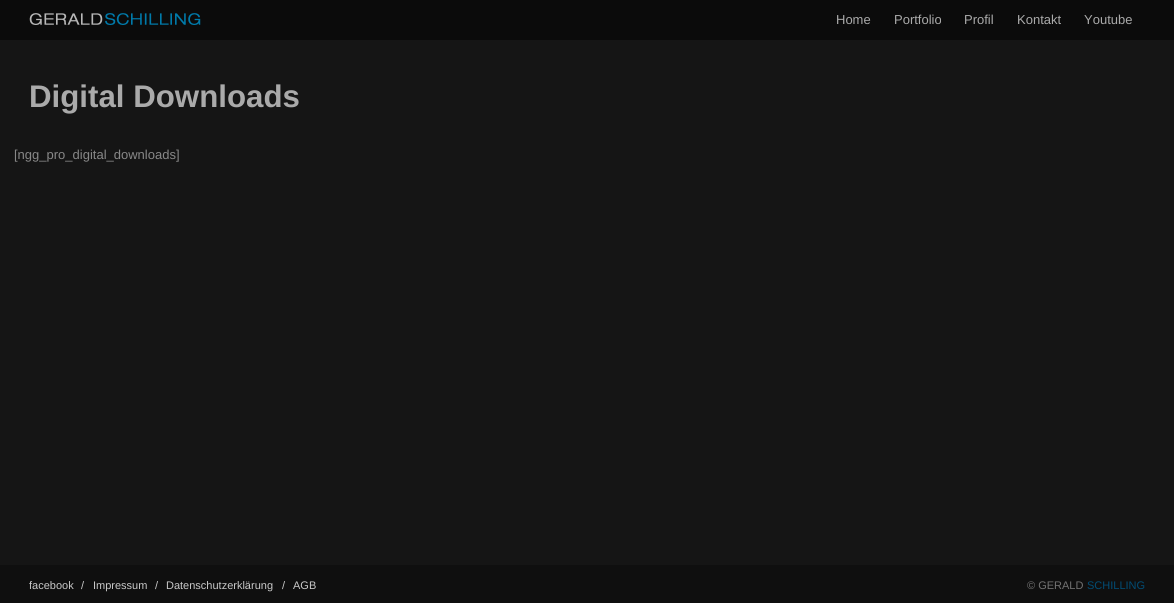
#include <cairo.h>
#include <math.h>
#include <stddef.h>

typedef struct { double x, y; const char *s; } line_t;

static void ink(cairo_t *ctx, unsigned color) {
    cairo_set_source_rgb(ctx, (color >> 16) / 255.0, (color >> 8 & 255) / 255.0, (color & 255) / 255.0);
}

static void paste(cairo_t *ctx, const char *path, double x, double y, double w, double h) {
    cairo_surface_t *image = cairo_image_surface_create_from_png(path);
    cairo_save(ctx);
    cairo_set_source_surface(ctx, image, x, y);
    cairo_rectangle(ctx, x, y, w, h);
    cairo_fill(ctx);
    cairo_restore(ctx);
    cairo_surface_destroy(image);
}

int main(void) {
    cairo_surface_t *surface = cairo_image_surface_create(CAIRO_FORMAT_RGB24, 1174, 603);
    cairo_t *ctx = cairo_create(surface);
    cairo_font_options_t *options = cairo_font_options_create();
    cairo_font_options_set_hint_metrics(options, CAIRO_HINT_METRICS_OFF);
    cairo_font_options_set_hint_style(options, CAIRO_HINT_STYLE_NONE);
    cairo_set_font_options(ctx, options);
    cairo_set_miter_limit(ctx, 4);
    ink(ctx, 0x151515);
    cairo_paint(ctx);
    ink(ctx, 0x0B0B0B);
    cairo_rectangle(ctx, 0, 0, 1174, 40);
    cairo_fill(ctx);
    paste(ctx, "media/1.png", 29, 13, 172, 12);
    cairo_select_font_face(ctx, "Liberation Sans", CAIRO_FONT_SLANT_NORMAL, CAIRO_FONT_WEIGHT_NORMAL);
    cairo_set_font_size(ctx, 13);
    ink(ctx, 0xAAAAAA);
    {
        static const line_t items[] = {
            {836, 24, "Home"},
            {894, 24, "Portfolio"},
            {964, 24, "Profil"},
            {1017, 24, "Kontakt"},
            {1084, 24, "Youtube"},
        };
        for (size_t i = 0; i < sizeof items / sizeof *items; i++) {
            cairo_move_to(ctx, items[i].x, items[i].y);
            cairo_show_text(ctx, items[i].s);
        }
    }
    cairo_select_font_face(ctx, "Liberation Sans", CAIRO_FONT_SLANT_NORMAL, CAIRO_FONT_WEIGHT_BOLD);
    cairo_set_font_size(ctx, 31.25);
    cairo_move_to(ctx, 29, 107);
    cairo_show_text(ctx, "Digital Downloads");
    cairo_select_font_face(ctx, "Liberation Sans", CAIRO_FONT_SLANT_NORMAL, CAIRO_FONT_WEIGHT_NORMAL);
    cairo_set_font_size(ctx, 13);
    ink(ctx, 0x888888);
    cairo_move_to(ctx, 14, 159);
    cairo_show_text(ctx, "[ngg_pro_digital_downloads]");
    ink(ctx, 0x0F0F0F);
    cairo_rectangle(ctx, 0, 565, 1174, 38);
    cairo_fill(ctx);
    cairo_set_font_size(ctx, 11);
    ink(ctx, 0xC9C9C9);
    {
        static const line_t items[] = {
            {29, 589, "facebook"},
            {81, 589, "/"},
            {93, 589, "Impressum"},
            {155, 589, "/"},
            {166, 589, "Datenschutzerklärung"},
            {282, 589, "/"},
            {293, 589, "AGB"},
        };
        for (size_t i = 0; i < sizeof items / sizeof *items; i++) {
            cairo_move_to(ctx, items[i].x, items[i].y);
            cairo_show_text(ctx, items[i].s);
        }
    }
    ink(ctx, 0x727272);
    cairo_move_to(ctx, 1027, 589);
    cairo_show_text(ctx, "© GERALD");
    ink(ctx, 0x014C74);
    cairo_move_to(ctx, 1087, 589);
    cairo_show_text(ctx, "SCHILLING");
    cairo_surface_write_to_png(surface, "image.png");
    cairo_font_options_destroy(options);
    cairo_destroy(ctx);
    cairo_surface_destroy(surface);
    return 0;
}
